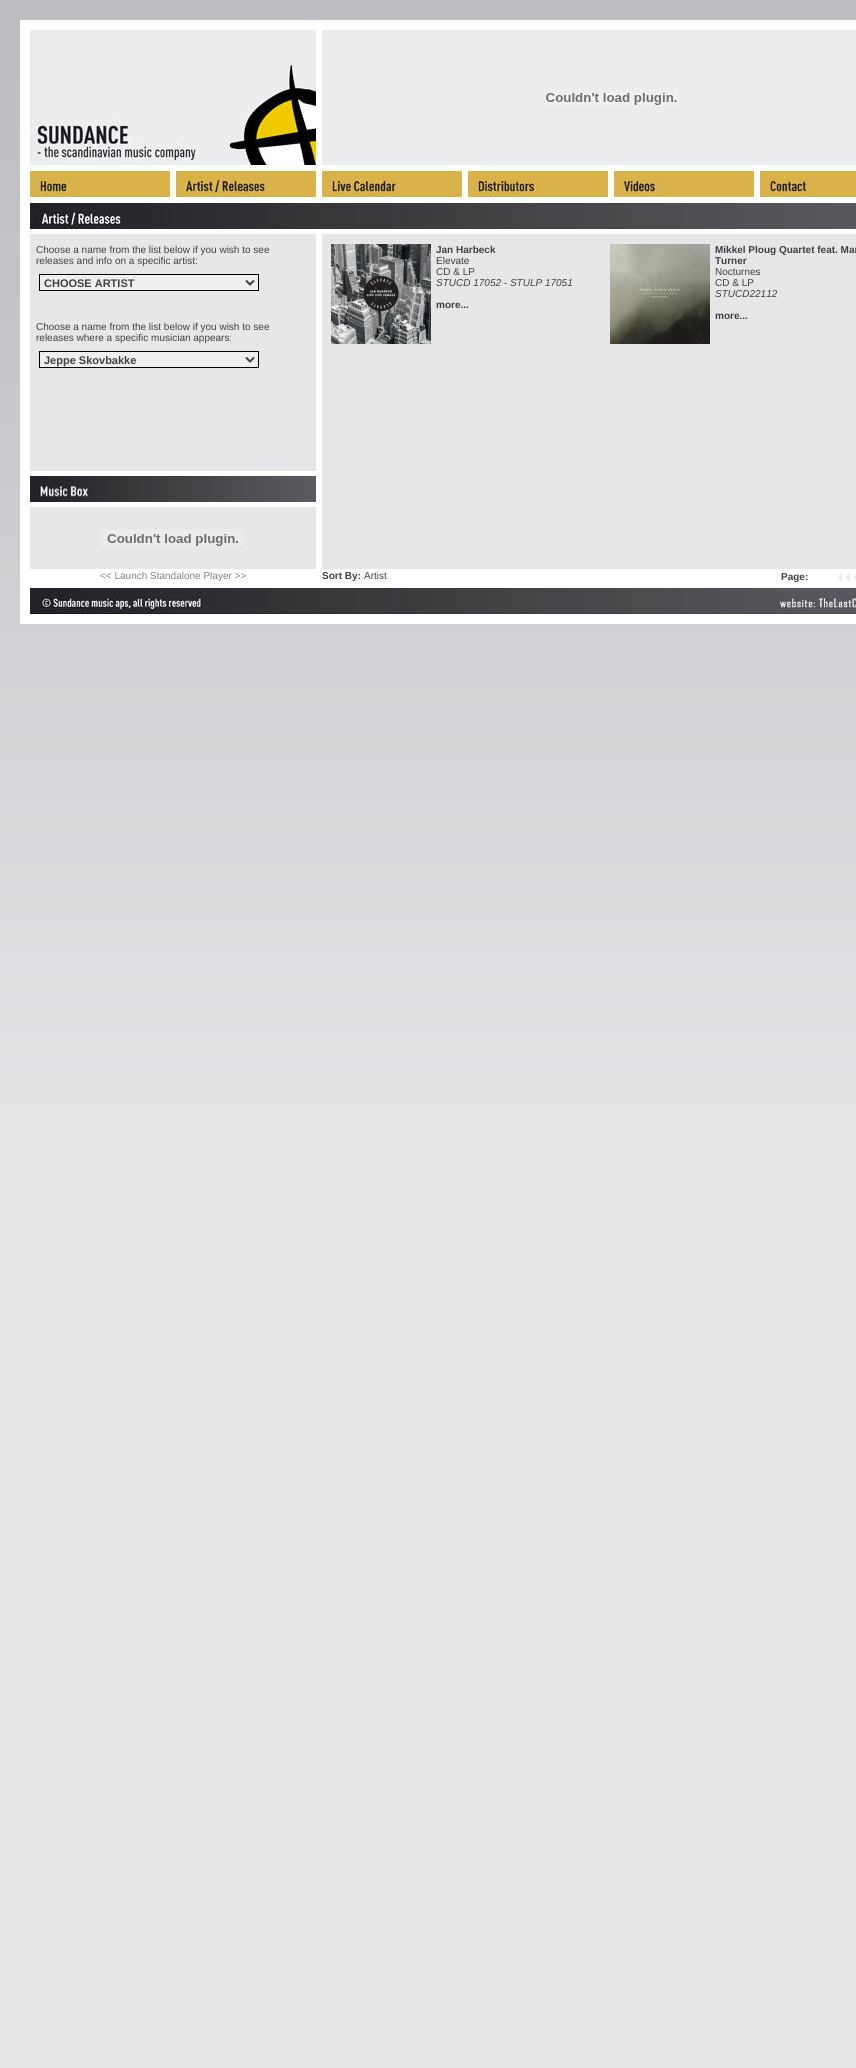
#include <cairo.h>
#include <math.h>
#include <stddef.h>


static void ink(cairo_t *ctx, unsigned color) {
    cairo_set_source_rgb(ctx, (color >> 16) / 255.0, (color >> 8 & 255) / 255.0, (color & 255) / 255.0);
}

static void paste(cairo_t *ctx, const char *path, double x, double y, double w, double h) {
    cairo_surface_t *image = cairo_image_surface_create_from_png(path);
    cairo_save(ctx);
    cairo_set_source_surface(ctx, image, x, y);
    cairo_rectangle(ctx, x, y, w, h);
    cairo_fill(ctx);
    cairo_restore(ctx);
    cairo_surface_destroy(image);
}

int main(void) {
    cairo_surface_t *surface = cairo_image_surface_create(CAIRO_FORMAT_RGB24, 856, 2068);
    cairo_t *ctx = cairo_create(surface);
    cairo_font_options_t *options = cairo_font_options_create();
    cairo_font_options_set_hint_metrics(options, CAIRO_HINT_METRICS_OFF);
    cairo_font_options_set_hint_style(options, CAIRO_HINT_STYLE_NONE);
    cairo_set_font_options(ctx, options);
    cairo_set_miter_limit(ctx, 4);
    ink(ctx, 0xE7E7E9);
    cairo_paint(ctx);
    paste(ctx, "media/1.png", 0, 0, 856, 1104);
    ink(ctx, 0xFFFFFF);
    cairo_rectangle(ctx, 20, 20, 836, 604);
    cairo_fill(ctx);
    paste(ctx, "media/2.png", 30, 30, 286, 135);
    ink(ctx, 0xECEDEF);
    cairo_rectangle(ctx, 322, 30, 534, 135);
    cairo_fill(ctx);
    paste(ctx, "media/3.png", 546, 93, 131, 12);
    paste(ctx, "media/4.png", 30, 171, 140, 26);
    paste(ctx, "media/5.png", 176, 171, 140, 26);
    paste(ctx, "media/6.png", 322, 171, 140, 26);
    paste(ctx, "media/7.png", 468, 171, 140, 26);
    paste(ctx, "media/8.png", 614, 171, 140, 26);
    paste(ctx, "media/9.png", 760, 171, 96, 26);
    paste(ctx, "media/10.png", 30, 203, 826, 26);
    ink(ctx, 0xE7E7E9);
    cairo_rectangle(ctx, 30, 234, 286, 237);
    cairo_fill(ctx);
    cairo_select_font_face(ctx, "Liberation Sans", CAIRO_FONT_SLANT_NORMAL, CAIRO_FONT_WEIGHT_NORMAL);
    cairo_set_font_size(ctx, 10);
    ink(ctx, 0x413F44);
    cairo_move_to(ctx, 36, 253);
    cairo_show_text(ctx, "Choose a name from the list below if you wish to see");
    cairo_move_to(ctx, 36, 264);
    cairo_show_text(ctx, "releases and info on a specific artist:");
    ink(ctx, 0xEFEFEF);
    cairo_rectangle(ctx, 39.5, 274.5, 219, 16);
    cairo_fill_preserve(ctx);
    ink(ctx, 0x000000);
    cairo_set_line_width(ctx, 1);
    cairo_stroke(ctx);
    cairo_new_path(ctx);
    cairo_move_to(ctx, 246, 280.5);
    cairo_line_to(ctx, 250, 284.5);
    cairo_line_to(ctx, 254, 280.5);
    ink(ctx, 0x413F44);
    cairo_set_line_width(ctx, 2);
    cairo_stroke(ctx);
    cairo_select_font_face(ctx, "Liberation Sans", CAIRO_FONT_SLANT_NORMAL, CAIRO_FONT_WEIGHT_BOLD);
    cairo_set_font_size(ctx, 11);
    cairo_move_to(ctx, 44, 287);
    cairo_show_text(ctx, "CHOOSE ARTIST");
    cairo_select_font_face(ctx, "Liberation Sans", CAIRO_FONT_SLANT_NORMAL, CAIRO_FONT_WEIGHT_NORMAL);
    cairo_set_font_size(ctx, 10);
    cairo_move_to(ctx, 36, 330);
    cairo_show_text(ctx, "Choose a name from the list below if you wish to see");
    cairo_move_to(ctx, 36, 341);
    cairo_show_text(ctx, "releases where a specific musician appears:");
    ink(ctx, 0xEFEFEF);
    cairo_rectangle(ctx, 39.5, 351.5, 219, 16);
    cairo_fill_preserve(ctx);
    ink(ctx, 0x000000);
    cairo_set_line_width(ctx, 1);
    cairo_stroke(ctx);
    cairo_new_path(ctx);
    cairo_move_to(ctx, 246, 357.5);
    cairo_line_to(ctx, 250, 361.5);
    cairo_line_to(ctx, 254, 357.5);
    ink(ctx, 0x413F44);
    cairo_set_line_width(ctx, 2);
    cairo_stroke(ctx);
    cairo_select_font_face(ctx, "Liberation Sans", CAIRO_FONT_SLANT_NORMAL, CAIRO_FONT_WEIGHT_BOLD);
    cairo_set_font_size(ctx, 11);
    cairo_move_to(ctx, 44, 364);
    cairo_show_text(ctx, "Jeppe Skovbakke");
    paste(ctx, "media/11.png", 30, 476, 286, 26);
    ink(ctx, 0xE7E7E9);
    cairo_rectangle(ctx, 30, 507, 286, 62);
    cairo_fill(ctx);
    paste(ctx, "media/12.png", 101, 529, 144, 18);
    cairo_rectangle(ctx, 322, 234, 534, 335);
    cairo_fill(ctx);
    paste(ctx, "media/13.png", 331, 244, 100, 100);
    cairo_set_font_size(ctx, 10);
    ink(ctx, 0x413F44);
    cairo_move_to(ctx, 436, 253);
    cairo_show_text(ctx, "Jan Harbeck");
    cairo_select_font_face(ctx, "Liberation Sans", CAIRO_FONT_SLANT_NORMAL, CAIRO_FONT_WEIGHT_NORMAL);
    cairo_move_to(ctx, 436, 264);
    cairo_show_text(ctx, "Elevate");
    cairo_move_to(ctx, 436, 275);
    cairo_show_text(ctx, "CD & LP");
    cairo_select_font_face(ctx, "Liberation Sans", CAIRO_FONT_SLANT_ITALIC, CAIRO_FONT_WEIGHT_NORMAL);
    cairo_move_to(ctx, 436, 286);
    cairo_show_text(ctx, "STUCD 17052 - STULP 17051");
    cairo_select_font_face(ctx, "Liberation Sans", CAIRO_FONT_SLANT_NORMAL, CAIRO_FONT_WEIGHT_BOLD);
    cairo_move_to(ctx, 436, 308);
    cairo_show_text(ctx, "more...");
    paste(ctx, "media/14.png", 610, 244, 100, 100);
    cairo_move_to(ctx, 715, 253);
    cairo_show_text(ctx, "Mikkel Ploug Quartet feat. Mar");
    cairo_move_to(ctx, 715, 264);
    cairo_show_text(ctx, "Turner");
    cairo_select_font_face(ctx, "Liberation Sans", CAIRO_FONT_SLANT_NORMAL, CAIRO_FONT_WEIGHT_NORMAL);
    cairo_move_to(ctx, 715, 275);
    cairo_show_text(ctx, "Nocturnes");
    cairo_move_to(ctx, 715, 286);
    cairo_show_text(ctx, "CD & LP");
    cairo_select_font_face(ctx, "Liberation Sans", CAIRO_FONT_SLANT_ITALIC, CAIRO_FONT_WEIGHT_NORMAL);
    cairo_move_to(ctx, 715, 297);
    cairo_show_text(ctx, "STUCD22112");
    cairo_select_font_face(ctx, "Liberation Sans", CAIRO_FONT_SLANT_NORMAL, CAIRO_FONT_WEIGHT_BOLD);
    cairo_move_to(ctx, 715, 319);
    cairo_show_text(ctx, "more...");
    cairo_select_font_face(ctx, "Liberation Sans", CAIRO_FONT_SLANT_NORMAL, CAIRO_FONT_WEIGHT_NORMAL);
    ink(ctx, 0x857F88);
    cairo_move_to(ctx, 100, 579);
    cairo_show_text(ctx, "<< Launch Standalone Player >>");
    cairo_select_font_face(ctx, "Liberation Sans", CAIRO_FONT_SLANT_NORMAL, CAIRO_FONT_WEIGHT_BOLD);
    ink(ctx, 0x413F44);
    cairo_move_to(ctx, 322, 579);
    cairo_show_text(ctx, "Sort By:");
    cairo_select_font_face(ctx, "Liberation Sans", CAIRO_FONT_SLANT_NORMAL, CAIRO_FONT_WEIGHT_NORMAL);
    cairo_move_to(ctx, 364, 579);
    cairo_show_text(ctx, "Artist");
    cairo_select_font_face(ctx, "Liberation Sans", CAIRO_FONT_SLANT_NORMAL, CAIRO_FONT_WEIGHT_BOLD);
    cairo_move_to(ctx, 781, 580);
    cairo_show_text(ctx, "Page:");
    paste(ctx, "media/15.png", 838, 571, 18, 11);
    paste(ctx, "media/16.png", 30, 588, 826, 26);
    paste(ctx, "media/17.png", 778, 596, 78, 16);
    cairo_surface_write_to_png(surface, "image.png");
    cairo_font_options_destroy(options);
    cairo_destroy(ctx);
    cairo_surface_destroy(surface);
    return 0;
}
